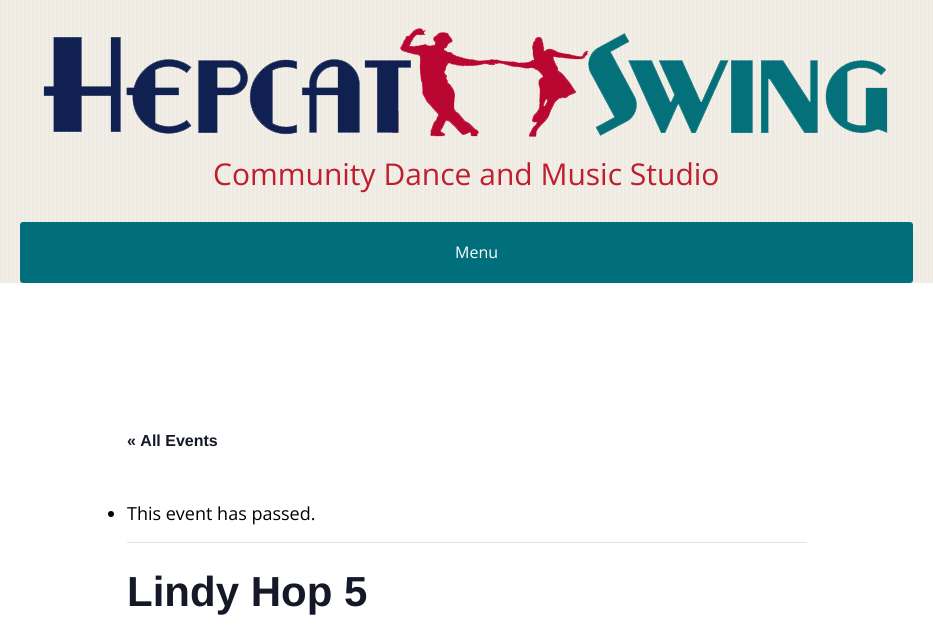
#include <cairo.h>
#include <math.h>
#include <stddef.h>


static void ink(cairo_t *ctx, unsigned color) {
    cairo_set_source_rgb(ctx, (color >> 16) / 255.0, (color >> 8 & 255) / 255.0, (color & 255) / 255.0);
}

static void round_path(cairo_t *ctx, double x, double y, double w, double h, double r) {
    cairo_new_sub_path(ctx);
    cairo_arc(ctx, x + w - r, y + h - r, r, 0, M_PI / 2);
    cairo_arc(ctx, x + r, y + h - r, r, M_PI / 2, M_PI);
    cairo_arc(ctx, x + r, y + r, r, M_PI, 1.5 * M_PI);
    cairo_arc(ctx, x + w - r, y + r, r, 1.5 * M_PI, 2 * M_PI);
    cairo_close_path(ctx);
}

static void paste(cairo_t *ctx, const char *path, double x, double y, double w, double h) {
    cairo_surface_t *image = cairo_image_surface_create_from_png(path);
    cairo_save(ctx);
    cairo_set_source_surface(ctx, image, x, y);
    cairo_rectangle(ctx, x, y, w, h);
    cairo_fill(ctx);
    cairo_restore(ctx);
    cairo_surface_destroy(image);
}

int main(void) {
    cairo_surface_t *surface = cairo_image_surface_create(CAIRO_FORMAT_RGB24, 933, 642);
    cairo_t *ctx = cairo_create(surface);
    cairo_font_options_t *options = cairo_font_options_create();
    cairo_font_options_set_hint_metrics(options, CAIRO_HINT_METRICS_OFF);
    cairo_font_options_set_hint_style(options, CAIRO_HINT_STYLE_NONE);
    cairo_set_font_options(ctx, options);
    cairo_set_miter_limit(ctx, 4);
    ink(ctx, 0xFFFFFF);
    cairo_paint(ctx);
    ink(ctx, 0xEAE4D8);
    cairo_rectangle(ctx, 0, 0, 933, 283);
    cairo_fill(ctx);
    paste(ctx, "media/1.png", 0, 0, 933, 283);
    paste(ctx, "media/2.png", 43, 28, 845, 109);
    cairo_select_font_face(ctx, "Open Sans", CAIRO_FONT_SLANT_NORMAL, CAIRO_FONT_WEIGHT_NORMAL);
    cairo_set_font_size(ctx, 30);
    ink(ctx, 0xBE1E2D);
    cairo_move_to(ctx, 213, 185);
    cairo_show_text(ctx, "Community Dance and Music Studio");
    ink(ctx, 0x006F7B);
    round_path(ctx, 20, 222, 893, 61, 3);
    cairo_fill(ctx);
    cairo_set_font_size(ctx, 16);
    ink(ctx, 0xFFFFFF);
    cairo_move_to(ctx, 455, 258);
    cairo_show_text(ctx, "Menu");
    cairo_select_font_face(ctx, "Liberation Sans", CAIRO_FONT_SLANT_NORMAL, CAIRO_FONT_WEIGHT_BOLD);
    ink(ctx, 0x141827);
    cairo_move_to(ctx, 127, 446);
    cairo_show_text(ctx, "« All Events");
    ink(ctx, 0xE4E4E4);
    cairo_rectangle(ctx, 127, 542, 680, 1);
    cairo_fill(ctx);
    ink(ctx, 0x000000);
    cairo_arc(ctx, 111, 514, 3, 0, 2 * M_PI);
    cairo_fill(ctx);
    cairo_select_font_face(ctx, "Open Sans", CAIRO_FONT_SLANT_NORMAL, CAIRO_FONT_WEIGHT_NORMAL);
    cairo_set_font_size(ctx, 18);
    cairo_move_to(ctx, 127, 520);
    cairo_show_text(ctx, "This event has passed.");
    cairo_select_font_face(ctx, "Liberation Sans", CAIRO_FONT_SLANT_NORMAL, CAIRO_FONT_WEIGHT_BOLD);
    cairo_set_font_size(ctx, 42);
    ink(ctx, 0x141827);
    cairo_move_to(ctx, 127, 606);
    cairo_show_text(ctx, "Lindy Hop 5");
    cairo_surface_write_to_png(surface, "image.png");
    cairo_font_options_destroy(options);
    cairo_destroy(ctx);
    cairo_surface_destroy(surface);
    return 0;
}
